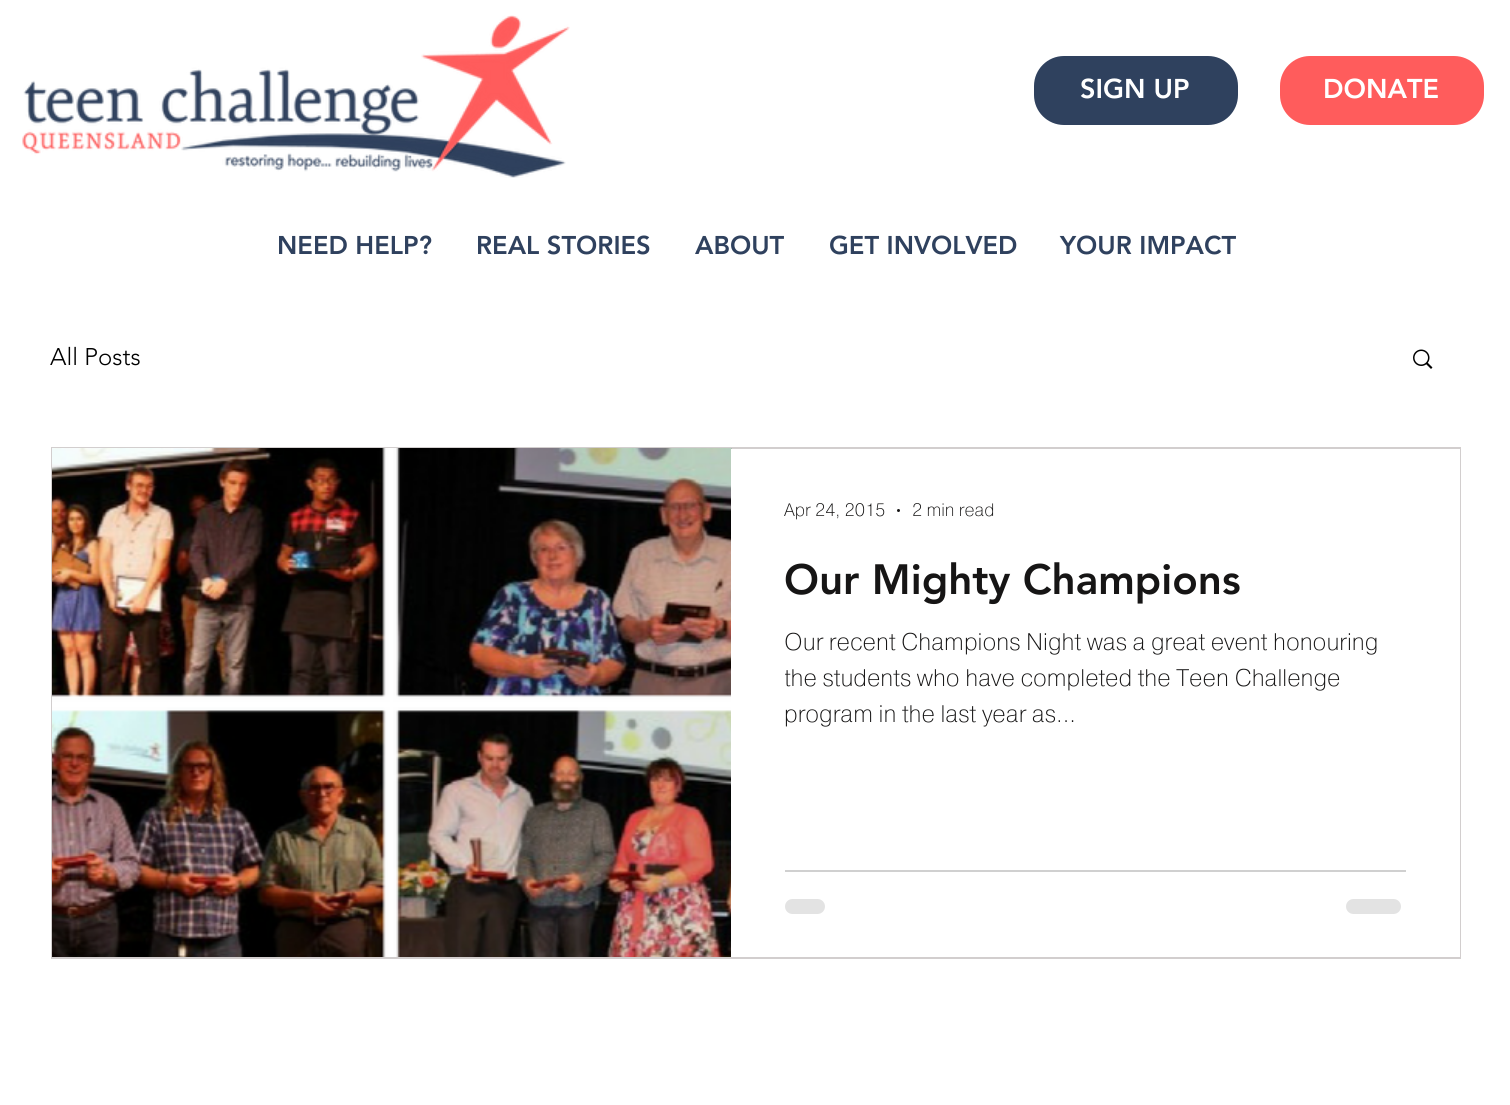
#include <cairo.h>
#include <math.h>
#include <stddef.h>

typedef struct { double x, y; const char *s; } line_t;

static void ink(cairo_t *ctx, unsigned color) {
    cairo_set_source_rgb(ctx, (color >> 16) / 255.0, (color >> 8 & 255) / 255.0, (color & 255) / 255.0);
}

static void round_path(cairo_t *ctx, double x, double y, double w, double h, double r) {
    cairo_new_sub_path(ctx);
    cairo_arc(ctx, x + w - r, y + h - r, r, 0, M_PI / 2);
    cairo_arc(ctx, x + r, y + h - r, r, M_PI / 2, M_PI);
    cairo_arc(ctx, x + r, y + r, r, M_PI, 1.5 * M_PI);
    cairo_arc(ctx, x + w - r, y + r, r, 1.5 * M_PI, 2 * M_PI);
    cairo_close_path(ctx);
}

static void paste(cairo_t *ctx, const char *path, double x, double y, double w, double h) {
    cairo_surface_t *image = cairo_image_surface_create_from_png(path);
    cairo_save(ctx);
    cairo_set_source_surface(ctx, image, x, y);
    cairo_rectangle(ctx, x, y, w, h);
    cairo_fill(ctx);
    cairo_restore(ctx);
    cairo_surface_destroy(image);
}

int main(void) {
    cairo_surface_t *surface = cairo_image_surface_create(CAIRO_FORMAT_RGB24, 1510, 1105);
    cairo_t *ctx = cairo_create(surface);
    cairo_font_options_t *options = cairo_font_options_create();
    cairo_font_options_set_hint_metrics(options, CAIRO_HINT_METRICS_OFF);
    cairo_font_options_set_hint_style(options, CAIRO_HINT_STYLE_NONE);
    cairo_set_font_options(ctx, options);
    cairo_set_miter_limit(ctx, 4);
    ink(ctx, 0xFFFFFF);
    cairo_paint(ctx);
    paste(ctx, "media/1.png", 22, 15, 548, 163);
    ink(ctx, 0x2F415E);
    round_path(ctx, 1034, 56, 204, 69, 30);
    cairo_fill(ctx);
    cairo_select_font_face(ctx, "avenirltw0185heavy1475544 Black", CAIRO_FONT_SLANT_NORMAL, CAIRO_FONT_WEIGHT_NORMAL);
    cairo_set_font_size(ctx, 27);
    ink(ctx, 0xFFFFFF);
    cairo_move_to(ctx, 1080, 98);
    cairo_show_text(ctx, "SIGN UP");
    ink(ctx, 0xFF5C5C);
    round_path(ctx, 1280, 56, 204, 69, 30);
    cairo_fill(ctx);
    ink(ctx, 0xFFFFFF);
    cairo_move_to(ctx, 1323, 98);
    cairo_show_text(ctx, "DONATE");
    cairo_set_font_size(ctx, 25.5);
    ink(ctx, 0x2F415E);
    {
        static const line_t items[] = {
            {277, 254, "NEED HELP?"},
            {476, 254, "REAL STORIES"},
            {695, 254, "ABOUT"},
            {829, 254, "GET INVOLVED"},
            {1060, 254, "YOUR IMPACT"},
        };
        for (size_t i = 0; i < sizeof items / sizeof *items; i++) {
            cairo_move_to(ctx, items[i].x, items[i].y);
            cairo_show_text(ctx, items[i].s);
        }
    }
    cairo_select_font_face(ctx, "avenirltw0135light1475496 Light", CAIRO_FONT_SLANT_NORMAL, CAIRO_FONT_WEIGHT_NORMAL);
    cairo_set_font_size(ctx, 24);
    ink(ctx, 0x000000);
    cairo_move_to(ctx, 50, 365);
    cairo_show_text(ctx, "All Posts");
    paste(ctx, "media/2.png", 1413, 349, 20, 20);
    cairo_rectangle(ctx, 52, 448, 1408, 510);
    ink(ctx, 0xD2CECE);
    cairo_stroke(ctx);
    paste(ctx, "media/4.png", 731, 448, 1, 1);
    paste(ctx, "media/3.png", 52, 448, 680, 509);
    ink(ctx, 0xFFFFFF);
    cairo_rectangle(ctx, 731, 449, 729, 508);
    cairo_fill(ctx);
    cairo_select_font_face(ctx, "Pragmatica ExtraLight", CAIRO_FONT_SLANT_NORMAL, CAIRO_FONT_WEIGHT_NORMAL);
    cairo_set_font_size(ctx, 18);
    ink(ctx, 0x161515);
    cairo_move_to(ctx, 784, 516);
    cairo_show_text(ctx, "Apr 24, 2015");
    cairo_new_path(ctx);
    cairo_arc(ctx, 898.5, 510.5, 1.5, 0, 2 * M_PI);
    cairo_fill(ctx);
    cairo_move_to(ctx, 912, 516);
    cairo_show_text(ctx, "2 min read");
    cairo_select_font_face(ctx, "avenirltw0185heavy1475544 Black", CAIRO_FONT_SLANT_NORMAL, CAIRO_FONT_WEIGHT_NORMAL);
    cairo_set_font_size(ctx, 42);
    cairo_move_to(ctx, 784, 594);
    cairo_show_text(ctx, "Our Mighty Champions");
    cairo_select_font_face(ctx, "Pragmatica ExtraLight", CAIRO_FONT_SLANT_NORMAL, CAIRO_FONT_WEIGHT_NORMAL);
    cairo_set_font_size(ctx, 24);
    cairo_move_to(ctx, 784, 650);
    cairo_show_text(ctx, "Our recent Champions Night was a great event honouring");
    cairo_save(ctx);
    cairo_rectangle(ctx, 785, 623, 621, 108);
    cairo_clip(ctx);
    cairo_move_to(ctx, 784, 686);
    cairo_show_text(ctx, "the students who have completed the Teen Challenge");
    cairo_restore(ctx);
    cairo_move_to(ctx, 784, 722);
    cairo_show_text(ctx, "program in the last year as...");
    ink(ctx, 0xD0D0D0);
    cairo_rectangle(ctx, 785, 870, 621, 2);
    cairo_fill(ctx);
    ink(ctx, 0xE3E3E3);
    round_path(ctx, 785, 899, 40, 15, 7.5);
    cairo_fill(ctx);
    round_path(ctx, 1346, 899, 55, 15, 7.5);
    cairo_fill(ctx);
    cairo_surface_write_to_png(surface, "image.png");
    cairo_font_options_destroy(options);
    cairo_destroy(ctx);
    cairo_surface_destroy(surface);
    return 0;
}
